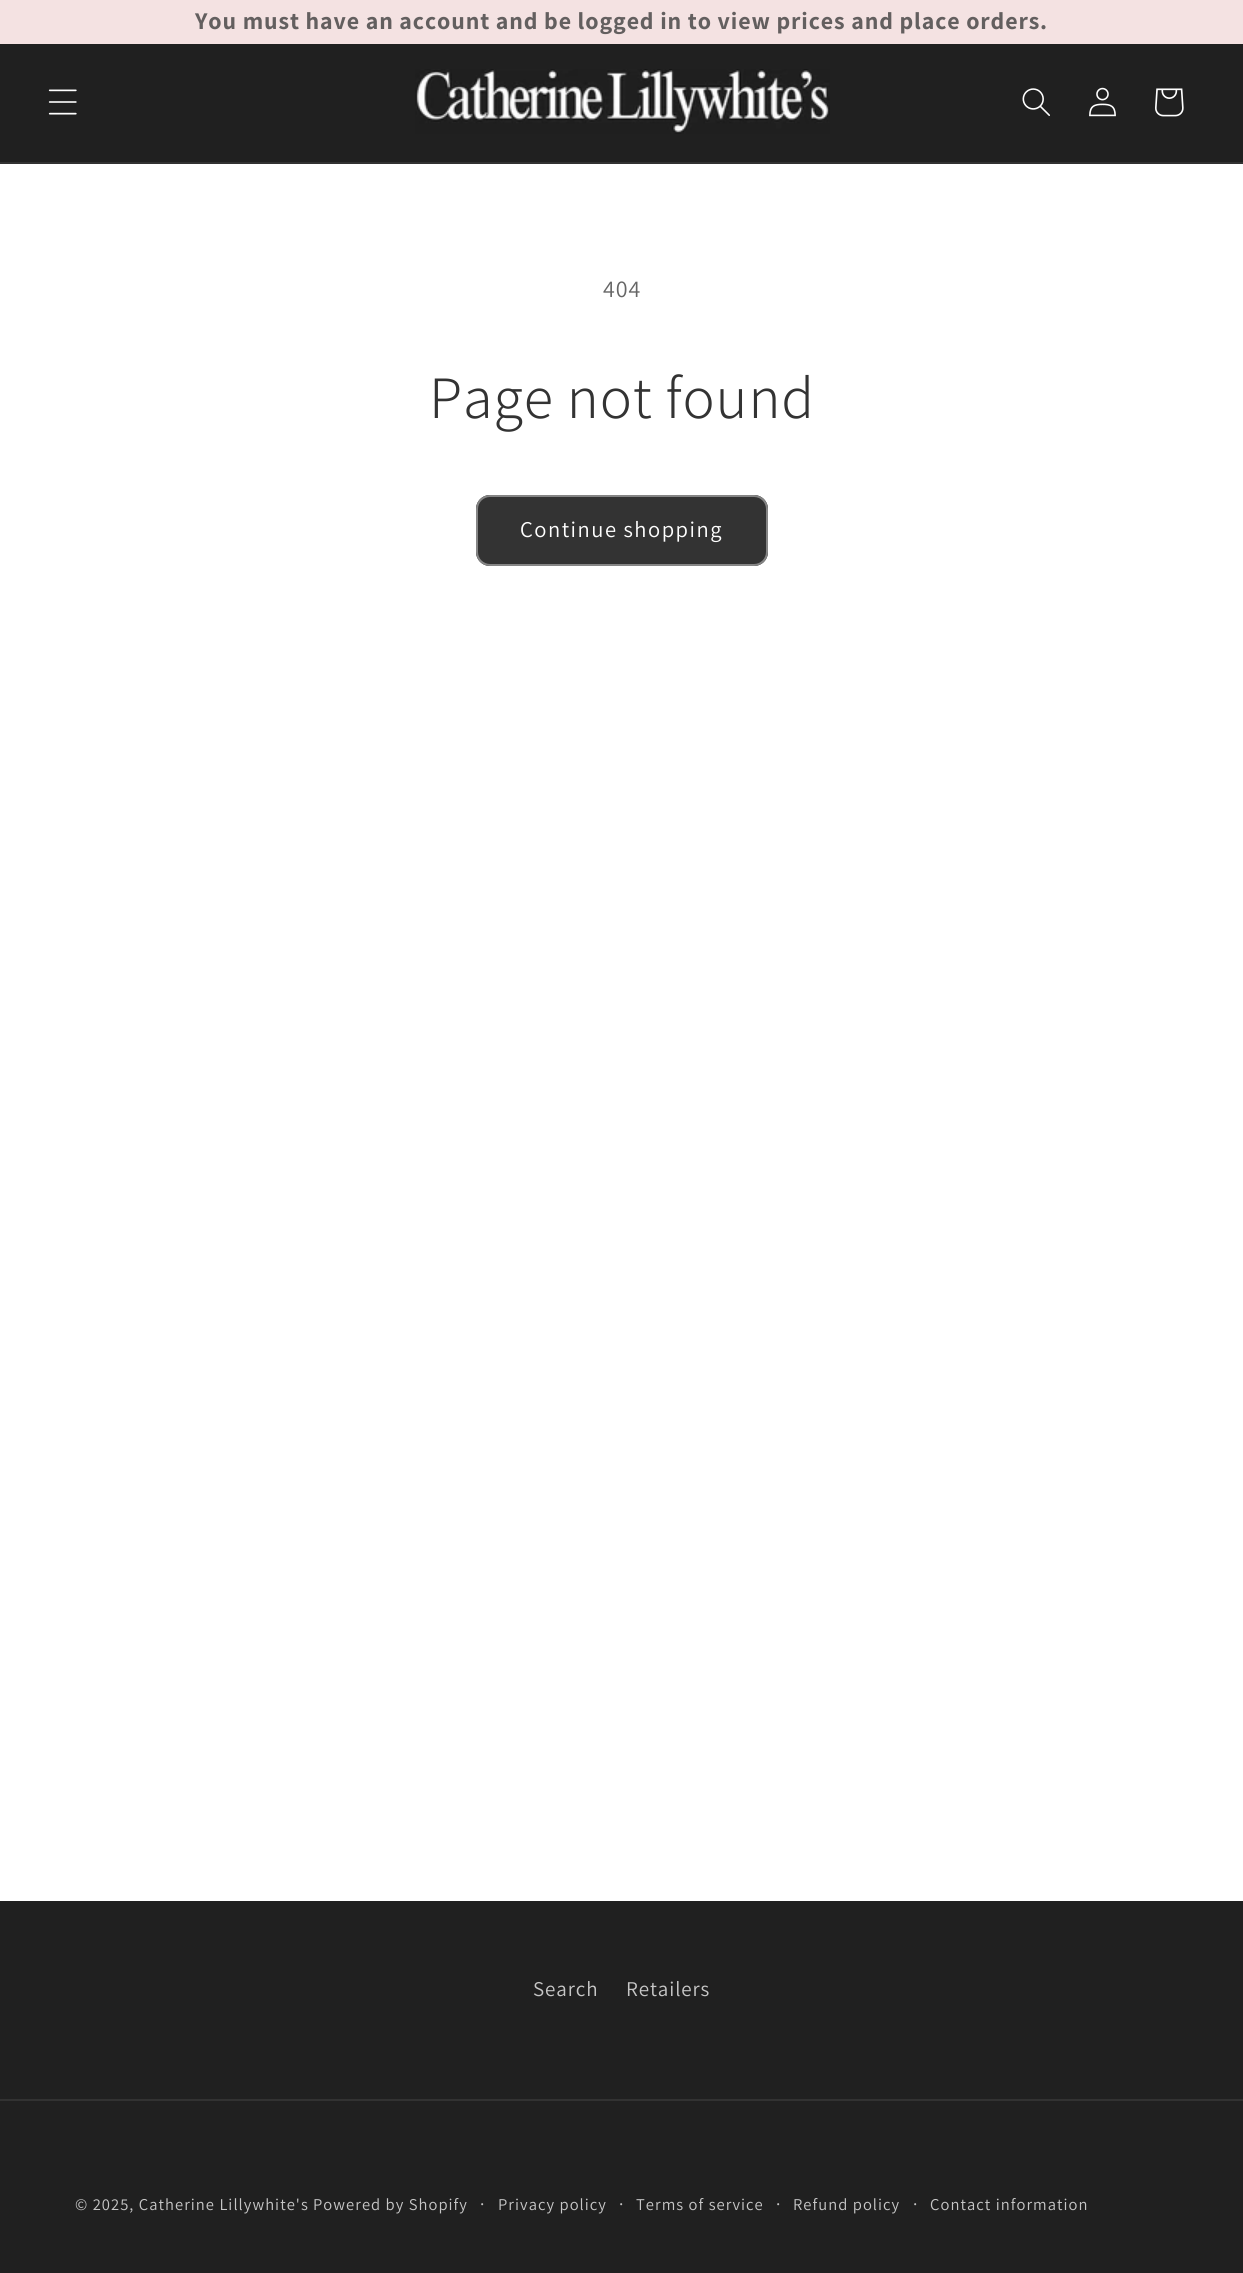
#include <cairo.h>
#include <math.h>
#include <stddef.h>


static void ink(cairo_t *ctx, unsigned color) {
    cairo_set_source_rgb(ctx, (color >> 16) / 255.0, (color >> 8 & 255) / 255.0, (color & 255) / 255.0);
}

static void write_spaced(cairo_t *ctx, double x, double y, const char *s, double letter, double word) {
    cairo_move_to(ctx, x, y);
    while (*s) {
        char ch[5] = {0};
        int n = 0;
        do ch[n++] = *s++; while ((*s & 0xC0) == 0x80);
        cairo_show_text(ctx, ch);
        cairo_rel_move_to(ctx, letter + word * (*ch == ' '), 0);
    }
}

static void round_path(cairo_t *ctx, double x, double y, double w, double h, double r) {
    cairo_new_sub_path(ctx);
    cairo_arc(ctx, x + w - r, y + h - r, r, 0, M_PI / 2);
    cairo_arc(ctx, x + r, y + h - r, r, M_PI / 2, M_PI);
    cairo_arc(ctx, x + r, y + r, r, M_PI, 1.5 * M_PI);
    cairo_arc(ctx, x + w - r, y + r, r, 1.5 * M_PI, 2 * M_PI);
    cairo_close_path(ctx);
}

static void paste(cairo_t *ctx, const char *path, double x, double y, double w, double h) {
    cairo_surface_t *image = cairo_image_surface_create_from_png(path);
    cairo_save(ctx);
    cairo_set_source_surface(ctx, image, x, y);
    cairo_rectangle(ctx, x, y, w, h);
    cairo_fill(ctx);
    cairo_restore(ctx);
    cairo_surface_destroy(image);
}

int main(void) {
    cairo_surface_t *surface = cairo_image_surface_create(CAIRO_FORMAT_RGB24, 1243, 2273);
    cairo_t *ctx = cairo_create(surface);
    cairo_font_options_t *options = cairo_font_options_create();
    cairo_font_options_set_hint_metrics(options, CAIRO_HINT_METRICS_OFF);
    cairo_font_options_set_hint_style(options, CAIRO_HINT_STYLE_NONE);
    cairo_set_font_options(ctx, options);
    cairo_set_miter_limit(ctx, 4);
    ink(ctx, 0xFFFFFF);
    cairo_paint(ctx);
    ink(ctx, 0xF4E2E2);
    cairo_rectangle(ctx, 0, 0, 1243, 44);
    cairo_fill(ctx);
    cairo_select_font_face(ctx, "Assistant", CAIRO_FONT_SLANT_NORMAL, CAIRO_FONT_WEIGHT_BOLD);
    cairo_set_font_size(ctx, 24);
    ink(ctx, 0x635F5F);
    write_spaced(ctx, 195, 29, "You must have an account and be logged in to view prices and place orders.", 0.9, 0);
    ink(ctx, 0x202020);
    cairo_rectangle(ctx, 0, 44, 1243, 118);
    cairo_fill(ctx);
    ink(ctx, 0x323232);
    cairo_rectangle(ctx, 0, 162, 1243, 2);
    cairo_fill(ctx);
    paste(ctx, "media/1.png", 48, 89, 29, 26);
    paste(ctx, "media/2.png", 415, 69, 415, 65);
    paste(ctx, "media/3.png", 1022, 88, 28, 28);
    paste(ctx, "media/4.png", 1089, 87, 27, 30);
    paste(ctx, "media/5.png", 1155, 88, 29, 29);
    cairo_select_font_face(ctx, "Assistant", CAIRO_FONT_SLANT_NORMAL, CAIRO_FONT_WEIGHT_NORMAL);
    ink(ctx, 0x666666);
    write_spaced(ctx, 603, 297, "404", 0.9, 0);
    cairo_select_font_face(ctx, "Assistant Light", CAIRO_FONT_SLANT_NORMAL, CAIRO_FONT_WEIGHT_NORMAL);
    cairo_set_font_size(ctx, 60);
    ink(ctx, 0x333333);
    write_spaced(ctx, 429, 418, "Page not found", 0.9, 0);
    round_path(ctx, 476, 495, 292, 71, 14);
    cairo_fill(ctx);
    round_path(ctx, 477, 496, 290, 69, 13);
    cairo_stroke(ctx);
    round_path(ctx, 477, 496, 290, 69, 13);
    cairo_set_source_rgba(ctx, 1, 1, 1, 0.4);
    cairo_stroke(ctx);
    cairo_select_font_face(ctx, "Assistant", CAIRO_FONT_SLANT_NORMAL, CAIRO_FONT_WEIGHT_NORMAL);
    cairo_set_font_size(ctx, 22.5);
    ink(ctx, 0xFFFFFF);
    write_spaced(ctx, 520, 537, "Continue shopping", 1.5, 0);
    ink(ctx, 0x202020);
    cairo_rectangle(ctx, 0, 1901, 1243, 372);
    cairo_fill(ctx);
    cairo_set_font_size(ctx, 21);
    ink(ctx, 0xC7C7C7);
    write_spaced(ctx, 533, 1996, "Search", 0.9, 0);
    write_spaced(ctx, 626, 1996, "Retailers", 0.9, 0);
    ink(ctx, 0x323232);
    cairo_rectangle(ctx, 0, 2099, 1243, 2);
    cairo_fill(ctx);
    cairo_set_font_size(ctx, 16.5);
    ink(ctx, 0xC7C7C7);
    write_spaced(ctx, 75, 2210, "© 2025, Catherine Lillywhite's", 1.05, 0);
    write_spaced(ctx, 313, 2210, "Powered by Shopify", 1.05, 0);
    cairo_set_font_size(ctx, 18);
    write_spaced(ctx, 480, 2210, "·", 1.05, 0);
    cairo_set_font_size(ctx, 16.5);
    write_spaced(ctx, 498, 2210, "Privacy policy", 1.05, 0);
    cairo_set_font_size(ctx, 18);
    write_spaced(ctx, 619, 2210, "·", 1.05, 0);
    cairo_set_font_size(ctx, 16.5);
    write_spaced(ctx, 636, 2210, "Terms of service", 1.05, 0);
    cairo_set_font_size(ctx, 18);
    write_spaced(ctx, 776, 2210, "·", 1.05, 0);
    cairo_set_font_size(ctx, 16.5);
    write_spaced(ctx, 793, 2210, "Refund policy", 1.05, 0);
    cairo_set_font_size(ctx, 18);
    write_spaced(ctx, 913, 2210, "·", 1.05, 0);
    cairo_set_font_size(ctx, 16.5);
    write_spaced(ctx, 930, 2210, "Contact information", 1.05, 0);
    cairo_surface_write_to_png(surface, "image.png");
    cairo_font_options_destroy(options);
    cairo_destroy(ctx);
    cairo_surface_destroy(surface);
    return 0;
}
